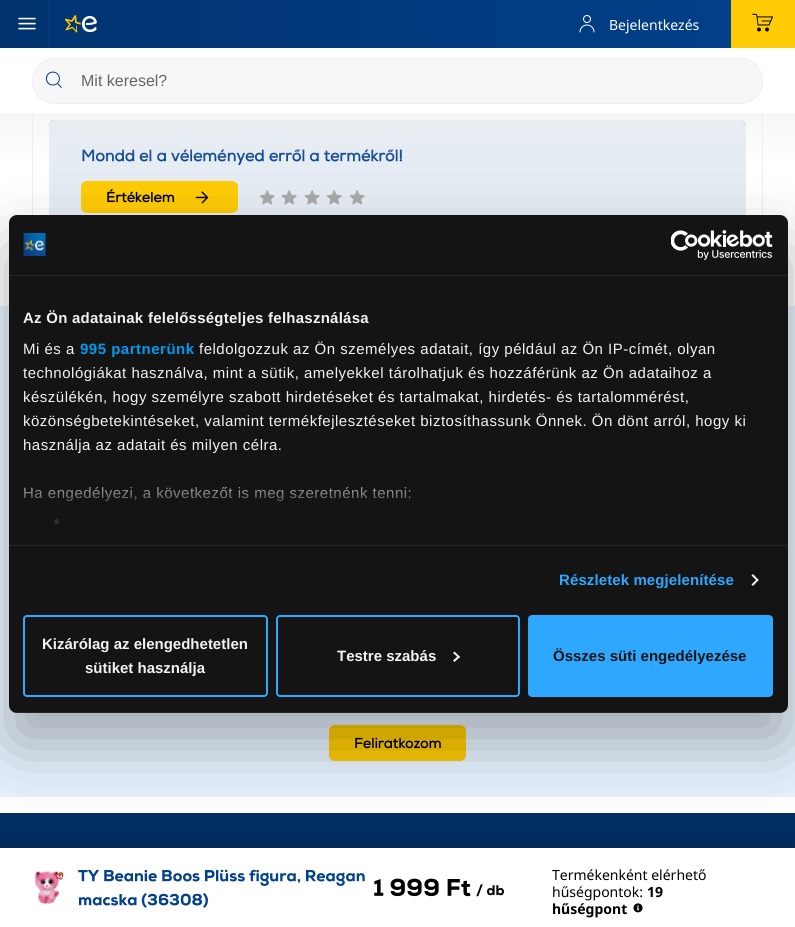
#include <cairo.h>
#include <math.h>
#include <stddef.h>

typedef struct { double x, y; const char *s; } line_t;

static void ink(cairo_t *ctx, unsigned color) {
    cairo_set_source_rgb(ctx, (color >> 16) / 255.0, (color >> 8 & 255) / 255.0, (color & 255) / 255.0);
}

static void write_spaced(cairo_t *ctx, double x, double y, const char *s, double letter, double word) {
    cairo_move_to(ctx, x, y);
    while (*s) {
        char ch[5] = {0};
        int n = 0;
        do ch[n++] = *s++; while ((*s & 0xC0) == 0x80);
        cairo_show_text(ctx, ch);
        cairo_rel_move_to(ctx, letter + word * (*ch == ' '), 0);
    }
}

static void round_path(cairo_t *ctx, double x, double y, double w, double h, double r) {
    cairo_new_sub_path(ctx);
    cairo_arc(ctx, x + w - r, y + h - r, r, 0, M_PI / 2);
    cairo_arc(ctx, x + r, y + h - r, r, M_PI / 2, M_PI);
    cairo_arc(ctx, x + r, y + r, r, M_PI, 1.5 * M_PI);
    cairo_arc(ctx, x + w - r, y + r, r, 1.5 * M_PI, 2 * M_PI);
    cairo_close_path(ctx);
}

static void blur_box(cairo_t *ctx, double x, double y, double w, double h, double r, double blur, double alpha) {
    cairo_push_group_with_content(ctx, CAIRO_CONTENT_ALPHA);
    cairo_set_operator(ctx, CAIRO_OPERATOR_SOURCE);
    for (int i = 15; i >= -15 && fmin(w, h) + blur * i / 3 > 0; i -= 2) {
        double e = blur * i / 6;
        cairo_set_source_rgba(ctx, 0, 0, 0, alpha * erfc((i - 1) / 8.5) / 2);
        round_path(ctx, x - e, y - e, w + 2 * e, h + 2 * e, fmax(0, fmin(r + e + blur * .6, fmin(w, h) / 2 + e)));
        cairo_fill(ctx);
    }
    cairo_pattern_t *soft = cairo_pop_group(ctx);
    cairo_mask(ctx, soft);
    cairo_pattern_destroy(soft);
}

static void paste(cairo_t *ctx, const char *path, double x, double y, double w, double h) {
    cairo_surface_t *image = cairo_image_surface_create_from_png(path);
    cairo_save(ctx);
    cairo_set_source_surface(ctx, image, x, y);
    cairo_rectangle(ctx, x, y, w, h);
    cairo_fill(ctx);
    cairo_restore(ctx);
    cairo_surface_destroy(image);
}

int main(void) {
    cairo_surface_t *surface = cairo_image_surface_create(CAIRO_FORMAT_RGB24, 795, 927);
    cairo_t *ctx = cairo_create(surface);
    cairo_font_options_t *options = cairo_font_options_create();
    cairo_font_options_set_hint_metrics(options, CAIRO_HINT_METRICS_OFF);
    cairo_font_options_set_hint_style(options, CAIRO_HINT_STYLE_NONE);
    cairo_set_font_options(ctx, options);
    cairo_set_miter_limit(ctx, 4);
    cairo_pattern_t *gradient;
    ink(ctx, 0xFFFFFF);
    cairo_paint(ctx);
    cairo_rectangle(ctx, 32.5, -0.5, 730, 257);
    ink(ctx, 0xEEEEEE);
    cairo_set_line_width(ctx, 1);
    cairo_stroke(ctx);
    gradient = cairo_pattern_create_linear(-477, 24, 795, 24);
    cairo_pattern_add_color_stop_rgba(gradient, 0, 0.004, 0.176, 0.38, 1);
    cairo_pattern_add_color_stop_rgba(gradient, 1, 0.008, 0.251, 0.545, 1);
    cairo_set_source(ctx, gradient);
    cairo_pattern_destroy(gradient);
    cairo_rectangle(ctx, 0, 0, 731, 48);
    cairo_fill(ctx);
    paste(ctx, "media/1.png", 18, 17, 18, 13);
    paste(ctx, "media/2.png", 65, 15, 32, 18);
    ink(ctx, 0x02408B);
    cairo_rectangle(ctx, 49, 0, 1, 48);
    cairo_fill(ctx);
    paste(ctx, "media/3.png", 579, 15, 16, 18);
    cairo_select_font_face(ctx, "Noto Sans", CAIRO_FONT_SLANT_NORMAL, CAIRO_FONT_WEIGHT_NORMAL);
    cairo_set_font_size(ctx, 14);
    ink(ctx, 0xFFFFFF);
    cairo_move_to(ctx, 609, 30);
    cairo_show_text(ctx, "Bejelentkezés");
    ink(ctx, 0xFFCB05);
    cairo_rectangle(ctx, 731, 0, 64, 48);
    cairo_fill(ctx);
    paste(ctx, "media/4.png", 752, 13, 21, 19);
    ink(ctx, 0xFFFFFF);
    cairo_rectangle(ctx, 32, 48, 731, 65);
    cairo_fill(ctx);
    ink(ctx, 0xF7F7F7);
    round_path(ctx, 32.5, 58.5, 730, 45, 22.5);
    cairo_fill_preserve(ctx);
    ink(ctx, 0xEEEEEE);
    cairo_stroke(ctx);
    paste(ctx, "media/5.png", 45, 71, 17, 17);
    cairo_select_font_face(ctx, "Liberation Sans", CAIRO_FONT_SLANT_NORMAL, CAIRO_FONT_WEIGHT_NORMAL);
    cairo_set_font_size(ctx, 16);
    ink(ctx, 0x666666);
    cairo_move_to(ctx, 81, 86);
    cairo_show_text(ctx, "Mit keresel?");
    ink(ctx, 0x02408B);
    round_path(ctx, 49, 120, 697, 119, 6);
    cairo_fill(ctx);
    cairo_set_source_rgba(ctx, 1, 1, 1, 0.9);
    round_path(ctx, 49, 120, 697, 119, 6);
    cairo_fill(ctx);
    cairo_select_font_face(ctx, "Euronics", CAIRO_FONT_SLANT_NORMAL, CAIRO_FONT_WEIGHT_BOLD);
    ink(ctx, 0x02408B);
    cairo_move_to(ctx, 81, 160);
    cairo_show_text(ctx, "Mondd el a véleményed erről a termékről!");
    gradient = cairo_pattern_create_linear(398, 113, 398, 165);
    cairo_pattern_add_color_stop_rgba(gradient, 0, 0.933, 0.933, 0.933, 0.5);
    cairo_pattern_add_color_stop_rgba(gradient, 1, 0.933, 0.933, 0.933, 0);
    cairo_set_source(ctx, gradient);
    cairo_pattern_destroy(gradient);
    cairo_rectangle(ctx, 0, 113, 795, 50);
    cairo_fill(ctx);
    ink(ctx, 0xFFCB05);
    round_path(ctx, 81.5, 181.5, 156, 31, 5.5);
    cairo_fill_preserve(ctx);
    cairo_stroke(ctx);
    cairo_set_font_size(ctx, 14);
    ink(ctx, 0x000000);
    cairo_move_to(ctx, 106, 201);
    cairo_show_text(ctx, "Értékelem");
    paste(ctx, "media/6.png", 195, 191, 14, 13);
    paste(ctx, "media/7.png", 259, 190, 16, 15);
    paste(ctx, "media/7.png", 281, 190, 16, 15);
    paste(ctx, "media/7.png", 304, 190, 16, 15);
    paste(ctx, "media/7.png", 326, 190, 16, 15);
    paste(ctx, "media/7.png", 349, 190, 16, 15);
    ink(ctx, 0xE6F2FE);
    cairo_rectangle(ctx, 0, 306, 795, 491);
    cairo_fill(ctx);
    ink(ctx, 0xFFCB05);
    round_path(ctx, 329.5, 725.5, 136, 35, 5.5);
    cairo_fill_preserve(ctx);
    cairo_stroke(ctx);
    ink(ctx, 0x012D61);
    cairo_rectangle(ctx, 0, 813, 795, 35);
    cairo_fill(ctx);
    ink(ctx, 0x000000);
    blur_box(ctx, 9, 247, 779, 498, 8, 34, 0.3);
    ink(ctx, 0x141414);
    round_path(ctx, 9, 215, 779, 498, 8);
    cairo_fill(ctx);
    ink(ctx, 0x272727);
    cairo_rectangle(ctx, 9, 275, 779, 1);
    cairo_fill(ctx);
    paste(ctx, "media/8.png", 23, 233, 23, 23);
    paste(ctx, "media/9.png", 671, 230, 102, 30);
    cairo_rectangle(ctx, 9, 545, 779, 1);
    cairo_fill(ctx);
    cairo_select_font_face(ctx, "Liberation Sans", CAIRO_FONT_SLANT_NORMAL, CAIRO_FONT_WEIGHT_BOLD);
    cairo_set_font_size(ctx, 15);
    ink(ctx, 0xF2F2F2);
    write_spaced(ctx, 23, 323, "Az Ön adatainak felelősségteljes felhasználása", 0.25, 0);
    cairo_select_font_face(ctx, "Liberation Sans", CAIRO_FONT_SLANT_NORMAL, CAIRO_FONT_WEIGHT_NORMAL);
    write_spaced(ctx, 23, 354, "Mi és a", 0.5, 0);
    cairo_select_font_face(ctx, "Liberation Sans", CAIRO_FONT_SLANT_NORMAL, CAIRO_FONT_WEIGHT_BOLD);
    ink(ctx, 0x009AEE);
    write_spaced(ctx, 80, 354, "995 partnerünk", 0.5, 0);
    cairo_select_font_face(ctx, "Liberation Sans", CAIRO_FONT_SLANT_NORMAL, CAIRO_FONT_WEIGHT_NORMAL);
    ink(ctx, 0xF2F2F2);
    {
        static const line_t items[] = {
            {199, 354, "feldolgozzuk az Ön személyes adatait, így például az Ön IP-címét, olyan"},
            {23, 378, "technológiákat használva, mint a sütik, amelyekkel tárolhatjuk és hozzáférünk az Ön adataihoz a"},
            {23, 402, "készülékén, hogy személyre szabott hirdetéseket és tartalmakat, hirdetés- és tartalommérést,"},
            {23, 426, "közönségbetekintéseket, valamint termékfejlesztéseket biztosíthassunk Önnek. Ön dönt arról, hogy ki"},
            {23, 450, "használja az adatait és milyen célra."},
            {23, 498, "Ha engedélyezi, a következőt is meg szeretnénk tenni:"},
        };
        for (size_t i = 0; i < sizeof items / sizeof *items; i++) {
            write_spaced(ctx, items[i].x, items[i].y, items[i].s, 0.5, 0);
        }
    }
    cairo_new_path(ctx);
    cairo_arc(ctx, 56.5, 521.5, 2.5, 0, 2 * M_PI);
    cairo_fill(ctx);
    gradient = cairo_pattern_create_linear(392, 545, 392, 470);
    cairo_pattern_add_color_stop_rgba(gradient, 0, 0.078, 0.078, 0.078, 1);
    cairo_pattern_add_color_stop_rgba(gradient, 0.5, 0.078, 0.078, 0.078, 0.8);
    cairo_pattern_add_color_stop_rgba(gradient, 1, 0.078, 0.078, 0.078, 0);
    cairo_set_source(ctx, gradient);
    cairo_pattern_destroy(gradient);
    cairo_rectangle(ctx, 24, 486, 387, 38);
    cairo_fill(ctx);
    cairo_select_font_face(ctx, "Liberation Sans", CAIRO_FONT_SLANT_NORMAL, CAIRO_FONT_WEIGHT_BOLD);
    ink(ctx, 0x2EA7FF);
    write_spaced(ctx, 559, 585, "Részletek megjelenítése", 0.1, 0);
    ink(ctx, 0xF2F2F2);
    cairo_new_path(ctx);
    cairo_move_to(ctx, 753, 574);
    cairo_line_to(ctx, 758.5, 580);
    cairo_line_to(ctx, 757.5, 581.5);
    cairo_line_to(ctx, 751.5, 575.5);
    cairo_close_path(ctx);
    cairo_fill(ctx);
    cairo_new_path(ctx);
    cairo_move_to(ctx, 757.5, 578.5);
    cairo_line_to(ctx, 758.5, 580);
    cairo_line_to(ctx, 753, 586);
    cairo_line_to(ctx, 751.5, 584.5);
    cairo_close_path(ctx);
    cairo_fill(ctx);
    cairo_save(ctx);
    round_path(ctx, 9, 215, 779, 498, 8);
    cairo_clip(ctx);
    cairo_set_source_rgba(ctx, 1, 1, 1, 0.08);
    cairo_rectangle(ctx, 9, 712, 779, 1);
    cairo_fill(ctx);
    cairo_restore(ctx);
    round_path(ctx, 24, 616, 243, 80, 3);
    ink(ctx, 0x2EA7FF);
    cairo_set_line_width(ctx, 2);
    cairo_stroke(ctx);
    ink(ctx, 0xF2F2F2);
    cairo_move_to(ctx, 42, 649);
    cairo_show_text(ctx, "Kizárólag az elengedhetetlen");
    cairo_move_to(ctx, 85, 673);
    cairo_show_text(ctx, "sütiket használja");
    round_path(ctx, 277, 616, 242, 80, 3);
    ink(ctx, 0x2EA7FF);
    cairo_stroke(ctx);
    ink(ctx, 0xF2F2F2);
    cairo_move_to(ctx, 337, 661);
    cairo_show_text(ctx, "Testre szabás");
    cairo_new_path(ctx);
    cairo_move_to(ctx, 454.5, 651.5);
    cairo_line_to(ctx, 460, 657);
    cairo_line_to(ctx, 458.5, 658);
    cairo_line_to(ctx, 453, 653);
    cairo_close_path(ctx);
    cairo_fill(ctx);
    cairo_new_path(ctx);
    cairo_move_to(ctx, 458.5, 655.5);
    cairo_line_to(ctx, 460, 657);
    cairo_line_to(ctx, 454.5, 662);
    cairo_line_to(ctx, 453, 660.5);
    cairo_close_path(ctx);
    cairo_fill(ctx);
    ink(ctx, 0x2EA7FF);
    round_path(ctx, 529, 616, 243, 80, 3);
    cairo_fill_preserve(ctx);
    cairo_stroke(ctx);
    ink(ctx, 0x141414);
    cairo_move_to(ctx, 553, 661);
    cairo_show_text(ctx, "Összes süti engedélyezése");
    cairo_select_font_face(ctx, "Euronics", CAIRO_FONT_SLANT_NORMAL, CAIRO_FONT_WEIGHT_BOLD);
    cairo_set_font_size(ctx, 14);
    ink(ctx, 0x000000);
    cairo_move_to(ctx, 354, 747);
    cairo_show_text(ctx, "Feliratkozom");
    ink(ctx, 0x000000);
    blur_box(ctx, 0, 852, 795, 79, 0, 12, 0.25);
    ink(ctx, 0xFFFFFF);
    cairo_rectangle(ctx, 0, 848, 795, 79);
    cairo_fill(ctx);
    paste(ctx, "media/10.png", 34, 870, 30, 34);
    cairo_select_font_face(ctx, "Euronics Black", CAIRO_FONT_SLANT_NORMAL, CAIRO_FONT_WEIGHT_NORMAL);
    cairo_set_font_size(ctx, 16);
    ink(ctx, 0x02408B);
    cairo_move_to(ctx, 78, 880);
    cairo_show_text(ctx, "TY Beanie Boos Plüss figura, Reagan");
    cairo_move_to(ctx, 78, 904);
    cairo_show_text(ctx, "macska (36308)");
    cairo_set_font_size(ctx, 24);
    ink(ctx, 0x000000);
    cairo_move_to(ctx, 373, 894);
    cairo_show_text(ctx, "1 999 Ft");
    cairo_set_font_size(ctx, 14);
    cairo_move_to(ctx, 476, 894);
    cairo_show_text(ctx, "/ db");
    cairo_select_font_face(ctx, "Noto Sans", CAIRO_FONT_SLANT_NORMAL, CAIRO_FONT_WEIGHT_NORMAL);
    cairo_move_to(ctx, 552, 880);
    cairo_show_text(ctx, "Termékenként elérhető");
    cairo_move_to(ctx, 552, 897);
    cairo_show_text(ctx, "hűségpontok:");
    cairo_select_font_face(ctx, "Noto Sans", CAIRO_FONT_SLANT_NORMAL, CAIRO_FONT_WEIGHT_BOLD);
    cairo_move_to(ctx, 647, 897);
    cairo_show_text(ctx, "19");
    cairo_move_to(ctx, 552, 914);
    cairo_show_text(ctx, "hűségpont");
    paste(ctx, "media/11.png", 633, 903, 10, 10);
    cairo_surface_write_to_png(surface, "image.png");
    cairo_font_options_destroy(options);
    cairo_destroy(ctx);
    cairo_surface_destroy(surface);
    return 0;
}
